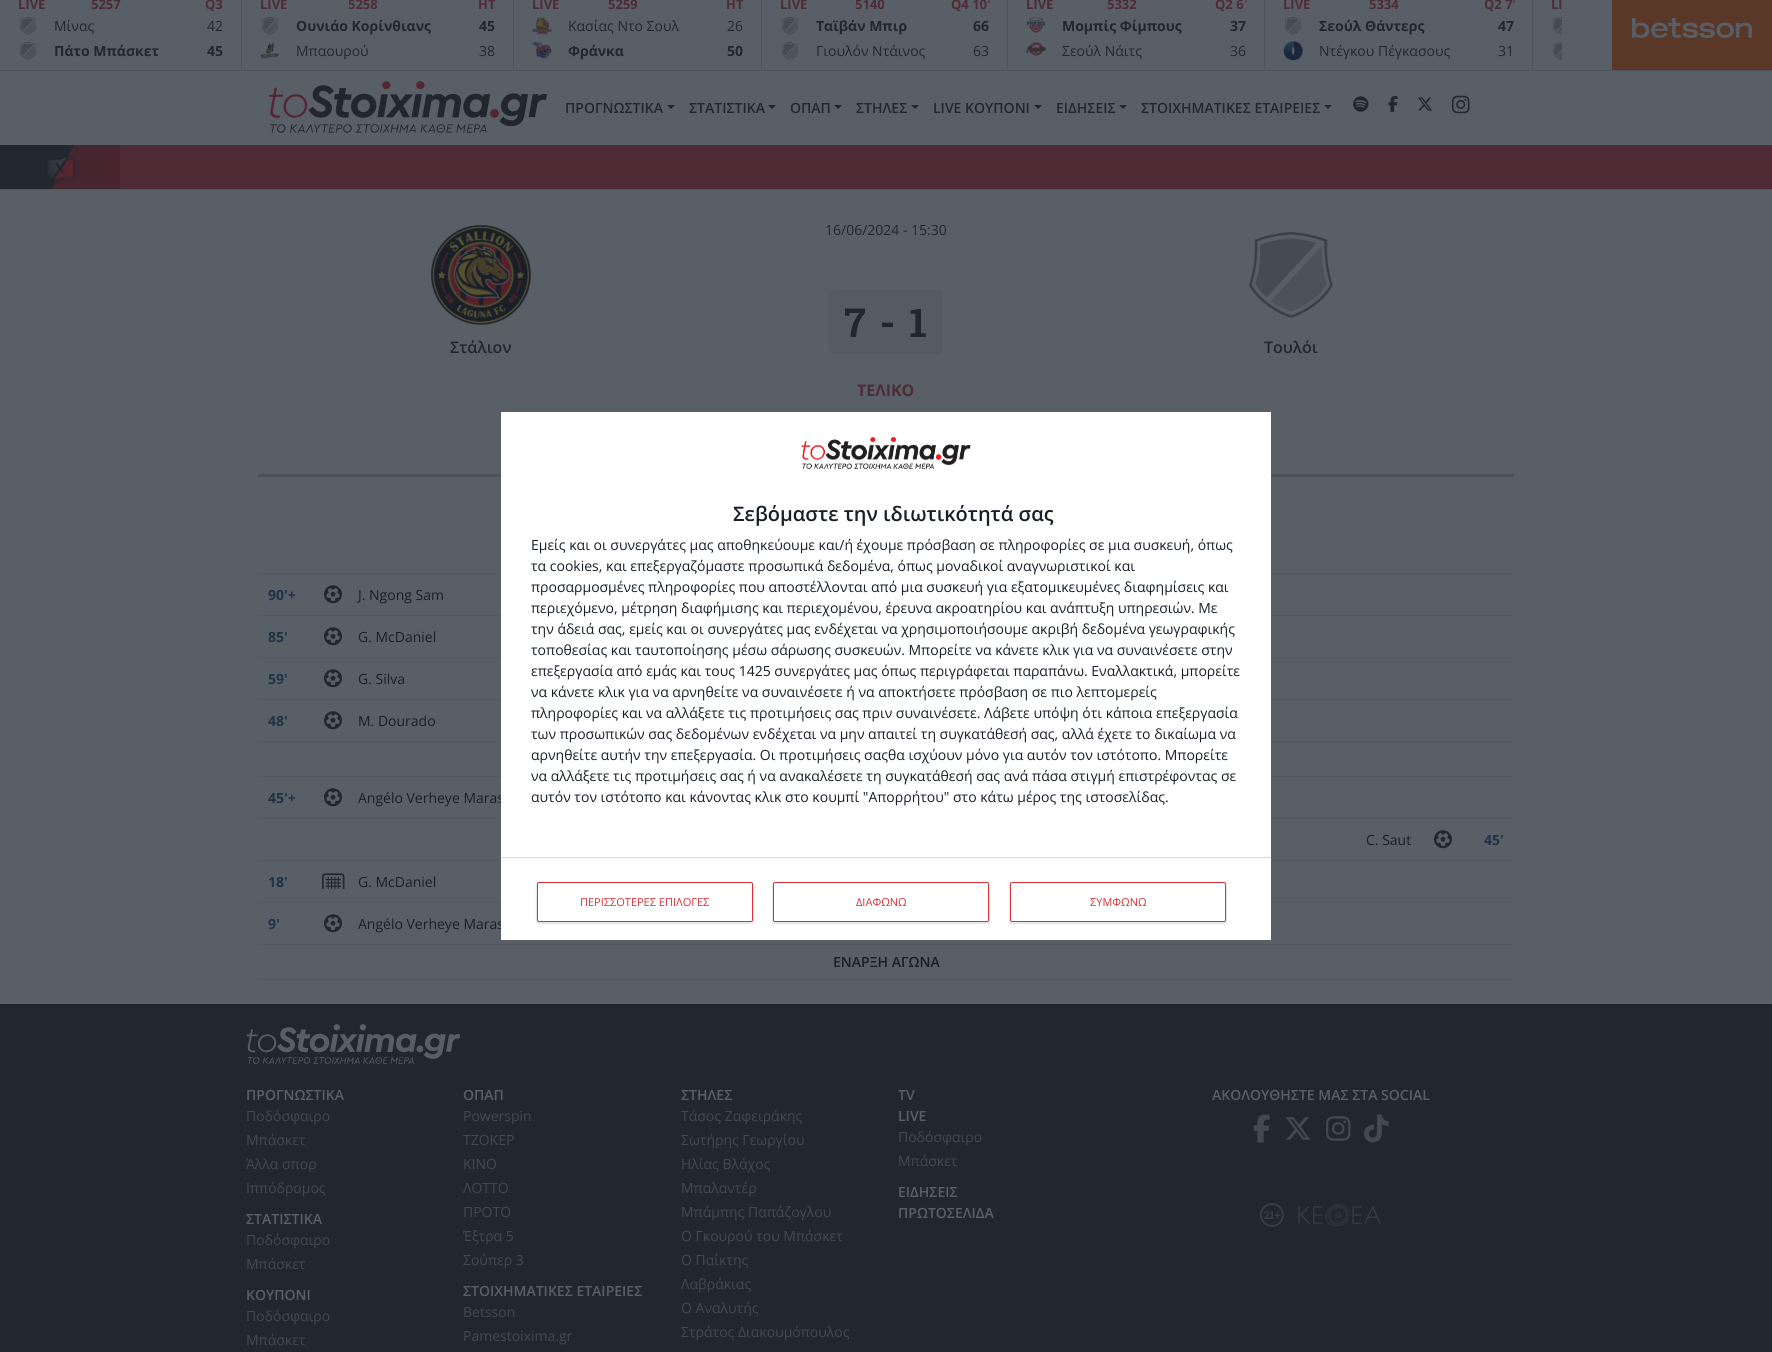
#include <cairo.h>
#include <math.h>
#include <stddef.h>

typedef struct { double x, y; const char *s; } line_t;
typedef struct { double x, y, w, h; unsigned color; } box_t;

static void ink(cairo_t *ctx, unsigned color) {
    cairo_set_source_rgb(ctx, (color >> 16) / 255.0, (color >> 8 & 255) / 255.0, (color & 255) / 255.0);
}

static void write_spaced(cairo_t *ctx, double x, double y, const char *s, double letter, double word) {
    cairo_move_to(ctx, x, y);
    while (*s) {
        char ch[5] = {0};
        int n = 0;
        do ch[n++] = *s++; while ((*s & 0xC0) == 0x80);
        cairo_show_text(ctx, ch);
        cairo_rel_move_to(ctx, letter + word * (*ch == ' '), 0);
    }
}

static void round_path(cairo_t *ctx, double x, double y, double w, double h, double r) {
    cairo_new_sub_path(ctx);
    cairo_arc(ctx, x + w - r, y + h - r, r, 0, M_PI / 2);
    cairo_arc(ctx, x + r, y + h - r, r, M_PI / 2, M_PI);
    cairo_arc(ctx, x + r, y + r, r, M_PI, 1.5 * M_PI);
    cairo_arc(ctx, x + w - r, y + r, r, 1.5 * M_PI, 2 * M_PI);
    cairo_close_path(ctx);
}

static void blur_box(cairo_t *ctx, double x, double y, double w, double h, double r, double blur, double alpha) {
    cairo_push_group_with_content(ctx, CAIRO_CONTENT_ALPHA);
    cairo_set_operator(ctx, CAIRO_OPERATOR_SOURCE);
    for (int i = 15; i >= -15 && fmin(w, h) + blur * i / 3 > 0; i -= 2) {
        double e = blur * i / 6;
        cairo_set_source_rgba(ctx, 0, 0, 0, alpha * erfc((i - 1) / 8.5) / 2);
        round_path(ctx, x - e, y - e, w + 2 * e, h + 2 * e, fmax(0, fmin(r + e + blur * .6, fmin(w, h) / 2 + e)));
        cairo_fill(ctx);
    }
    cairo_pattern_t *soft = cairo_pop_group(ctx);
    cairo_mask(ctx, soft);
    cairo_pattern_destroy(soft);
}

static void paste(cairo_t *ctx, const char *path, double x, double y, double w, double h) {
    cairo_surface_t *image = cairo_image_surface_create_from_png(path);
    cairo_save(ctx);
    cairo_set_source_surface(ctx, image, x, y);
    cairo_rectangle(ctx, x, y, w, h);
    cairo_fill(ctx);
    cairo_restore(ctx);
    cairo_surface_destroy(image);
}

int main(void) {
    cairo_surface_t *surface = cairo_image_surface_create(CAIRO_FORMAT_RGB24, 1772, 1352);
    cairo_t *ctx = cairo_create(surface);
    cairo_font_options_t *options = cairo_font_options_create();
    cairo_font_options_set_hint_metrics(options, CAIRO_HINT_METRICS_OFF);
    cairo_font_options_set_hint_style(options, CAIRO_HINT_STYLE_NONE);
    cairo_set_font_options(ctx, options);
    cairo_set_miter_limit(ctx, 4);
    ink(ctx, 0x595F67);
    cairo_paint(ctx);
    ink(ctx, 0x505660);
    cairo_rectangle(ctx, 0, 70, 1772, 1);
    cairo_fill(ctx);
    cairo_rectangle(ctx, 241, 0, 1, 70);
    cairo_fill(ctx);
    cairo_select_font_face(ctx, "Open Sans", CAIRO_FONT_SLANT_NORMAL, CAIRO_FONT_WEIGHT_BOLD);
    cairo_set_font_size(ctx, 13);
    ink(ctx, 0x4E2B35);
    {
        static const line_t items[] = {
            {18, 9, "LIVE"},
            {91, 9, "5257"},
            {205, 9, "Q3"},
        };
        for (size_t i = 0; i < sizeof items / sizeof *items; i++) {
            cairo_move_to(ctx, items[i].x, items[i].y);
            cairo_show_text(ctx, items[i].s);
        }
    }
    paste(ctx, "media/1.png", 19, 17, 18, 18);
    cairo_select_font_face(ctx, "Open Sans", CAIRO_FONT_SLANT_NORMAL, CAIRO_FONT_WEIGHT_NORMAL);
    cairo_set_font_size(ctx, 14);
    ink(ctx, 0x212730);
    cairo_move_to(ctx, 54, 31);
    cairo_show_text(ctx, "Μίνας");
    cairo_move_to(ctx, 207, 31);
    cairo_show_text(ctx, "42");
    paste(ctx, "media/1.png", 19, 42, 18, 18);
    cairo_select_font_face(ctx, "Open Sans", CAIRO_FONT_SLANT_NORMAL, CAIRO_FONT_WEIGHT_BOLD);
    cairo_move_to(ctx, 54, 56);
    cairo_show_text(ctx, "Πάτο Μπάσκετ");
    cairo_move_to(ctx, 207, 56);
    cairo_show_text(ctx, "45");
    ink(ctx, 0x505660);
    cairo_rectangle(ctx, 513, 0, 1, 70);
    cairo_fill(ctx);
    cairo_set_font_size(ctx, 13);
    ink(ctx, 0x4E2B35);
    {
        static const line_t items[] = {
            {260, 9, "LIVE"},
            {348, 9, "5258"},
            {478, 9, "HT"},
        };
        for (size_t i = 0; i < sizeof items / sizeof *items; i++) {
            cairo_move_to(ctx, items[i].x, items[i].y);
            cairo_show_text(ctx, items[i].s);
        }
    }
    paste(ctx, "media/1.png", 261, 17, 18, 18);
    cairo_set_font_size(ctx, 14);
    ink(ctx, 0x212730);
    cairo_move_to(ctx, 296, 31);
    cairo_show_text(ctx, "Ουνιάο Κορίνθιανς");
    cairo_move_to(ctx, 479, 31);
    cairo_show_text(ctx, "45");
    paste(ctx, "media/2.png", 260, 42, 20, 17);
    cairo_select_font_face(ctx, "Open Sans", CAIRO_FONT_SLANT_NORMAL, CAIRO_FONT_WEIGHT_NORMAL);
    cairo_move_to(ctx, 296, 56);
    cairo_show_text(ctx, "Μπαουρού");
    cairo_move_to(ctx, 479, 56);
    cairo_show_text(ctx, "38");
    ink(ctx, 0x505660);
    cairo_rectangle(ctx, 761, 0, 1, 70);
    cairo_fill(ctx);
    cairo_select_font_face(ctx, "Open Sans", CAIRO_FONT_SLANT_NORMAL, CAIRO_FONT_WEIGHT_BOLD);
    cairo_set_font_size(ctx, 13);
    ink(ctx, 0x4E2B35);
    {
        static const line_t items[] = {
            {532, 9, "LIVE"},
            {608, 9, "5259"},
            {726, 9, "HT"},
        };
        for (size_t i = 0; i < sizeof items / sizeof *items; i++) {
            cairo_move_to(ctx, items[i].x, items[i].y);
            cairo_show_text(ctx, items[i].s);
        }
    }
    paste(ctx, "media/3.png", 532, 17, 20, 18);
    cairo_select_font_face(ctx, "Open Sans", CAIRO_FONT_SLANT_NORMAL, CAIRO_FONT_WEIGHT_NORMAL);
    cairo_set_font_size(ctx, 14);
    ink(ctx, 0x212730);
    cairo_move_to(ctx, 568, 31);
    cairo_show_text(ctx, "Κασίας Ντο Σουλ");
    cairo_move_to(ctx, 727, 31);
    cairo_show_text(ctx, "26");
    paste(ctx, "media/4.png", 532, 41, 20, 18);
    cairo_select_font_face(ctx, "Open Sans", CAIRO_FONT_SLANT_NORMAL, CAIRO_FONT_WEIGHT_BOLD);
    cairo_move_to(ctx, 568, 56);
    cairo_show_text(ctx, "Φράνκα");
    cairo_move_to(ctx, 727, 56);
    cairo_show_text(ctx, "50");
    ink(ctx, 0x505660);
    cairo_rectangle(ctx, 1007, 0, 1, 70);
    cairo_fill(ctx);
    cairo_set_font_size(ctx, 13);
    ink(ctx, 0x4E2B35);
    {
        static const line_t items[] = {
            {780, 9, "LIVE"},
            {855, 9, "5140"},
            {951, 9, "Q4 10"},
        };
        for (size_t i = 0; i < sizeof items / sizeof *items; i++) {
            cairo_move_to(ctx, items[i].x, items[i].y);
            cairo_show_text(ctx, items[i].s);
        }
    }
    cairo_select_font_face(ctx, "Open Sans", CAIRO_FONT_SLANT_ITALIC, CAIRO_FONT_WEIGHT_NORMAL);
    cairo_move_to(ctx, 987, 9);
    cairo_show_text(ctx, "‘");
    paste(ctx, "media/1.png", 781, 17, 18, 18);
    cairo_select_font_face(ctx, "Open Sans", CAIRO_FONT_SLANT_NORMAL, CAIRO_FONT_WEIGHT_BOLD);
    cairo_set_font_size(ctx, 14);
    ink(ctx, 0x212730);
    cairo_move_to(ctx, 816, 31);
    cairo_show_text(ctx, "Ταϊβάν Μπιρ");
    cairo_move_to(ctx, 973, 31);
    cairo_show_text(ctx, "66");
    paste(ctx, "media/1.png", 781, 42, 18, 18);
    cairo_select_font_face(ctx, "Open Sans", CAIRO_FONT_SLANT_NORMAL, CAIRO_FONT_WEIGHT_NORMAL);
    cairo_move_to(ctx, 816, 56);
    cairo_show_text(ctx, "Γιουλόν Ντάινος");
    cairo_move_to(ctx, 973, 56);
    cairo_show_text(ctx, "63");
    ink(ctx, 0x505660);
    cairo_rectangle(ctx, 1264, 0, 1, 70);
    cairo_fill(ctx);
    cairo_select_font_face(ctx, "Open Sans", CAIRO_FONT_SLANT_NORMAL, CAIRO_FONT_WEIGHT_BOLD);
    cairo_set_font_size(ctx, 13);
    ink(ctx, 0x4E2B35);
    {
        static const line_t items[] = {
            {1026, 9, "LIVE"},
            {1107, 9, "5332"},
            {1215, 9, "Q2 6"},
        };
        for (size_t i = 0; i < sizeof items / sizeof *items; i++) {
            cairo_move_to(ctx, items[i].x, items[i].y);
            cairo_show_text(ctx, items[i].s);
        }
    }
    cairo_select_font_face(ctx, "Open Sans", CAIRO_FONT_SLANT_ITALIC, CAIRO_FONT_WEIGHT_NORMAL);
    cairo_move_to(ctx, 1244, 9);
    cairo_show_text(ctx, "‘");
    paste(ctx, "media/5.png", 1026, 16, 20, 18);
    cairo_select_font_face(ctx, "Open Sans", CAIRO_FONT_SLANT_NORMAL, CAIRO_FONT_WEIGHT_BOLD);
    cairo_set_font_size(ctx, 14);
    ink(ctx, 0x212730);
    cairo_move_to(ctx, 1062, 31);
    cairo_show_text(ctx, "Μομπίς Φίμπους");
    cairo_move_to(ctx, 1230, 31);
    cairo_show_text(ctx, "37");
    paste(ctx, "media/6.png", 1026, 42, 20, 14);
    cairo_select_font_face(ctx, "Open Sans", CAIRO_FONT_SLANT_NORMAL, CAIRO_FONT_WEIGHT_NORMAL);
    cairo_move_to(ctx, 1062, 56);
    cairo_show_text(ctx, "Σεούλ Νάιτς");
    cairo_move_to(ctx, 1230, 56);
    cairo_show_text(ctx, "36");
    ink(ctx, 0x505660);
    cairo_rectangle(ctx, 1532, 0, 1, 70);
    cairo_fill(ctx);
    cairo_select_font_face(ctx, "Open Sans", CAIRO_FONT_SLANT_NORMAL, CAIRO_FONT_WEIGHT_BOLD);
    cairo_set_font_size(ctx, 13);
    ink(ctx, 0x4E2B35);
    {
        static const line_t items[] = {
            {1283, 9, "LIVE"},
            {1369, 9, "5334"},
            {1484, 9, "Q2 7"},
        };
        for (size_t i = 0; i < sizeof items / sizeof *items; i++) {
            cairo_move_to(ctx, items[i].x, items[i].y);
            cairo_show_text(ctx, items[i].s);
        }
    }
    cairo_select_font_face(ctx, "Open Sans", CAIRO_FONT_SLANT_ITALIC, CAIRO_FONT_WEIGHT_NORMAL);
    cairo_move_to(ctx, 1512, 9);
    cairo_show_text(ctx, "‘");
    paste(ctx, "media/1.png", 1284, 17, 18, 18);
    cairo_select_font_face(ctx, "Open Sans", CAIRO_FONT_SLANT_NORMAL, CAIRO_FONT_WEIGHT_BOLD);
    cairo_set_font_size(ctx, 14);
    ink(ctx, 0x212730);
    cairo_move_to(ctx, 1319, 31);
    cairo_show_text(ctx, "Σεούλ Θάντερς");
    cairo_move_to(ctx, 1498, 31);
    cairo_show_text(ctx, "47");
    paste(ctx, "media/7.png", 1283, 41, 20, 20);
    cairo_select_font_face(ctx, "Open Sans", CAIRO_FONT_SLANT_NORMAL, CAIRO_FONT_WEIGHT_NORMAL);
    cairo_move_to(ctx, 1319, 56);
    cairo_show_text(ctx, "Ντέγκου Πέγκασους");
    cairo_move_to(ctx, 1498, 56);
    cairo_show_text(ctx, "31");
    cairo_select_font_face(ctx, "Open Sans", CAIRO_FONT_SLANT_NORMAL, CAIRO_FONT_WEIGHT_BOLD);
    cairo_set_font_size(ctx, 13);
    ink(ctx, 0x4E2B35);
    cairo_move_to(ctx, 1551, 9);
    cairo_show_text(ctx, "LI");
    paste(ctx, "media/8.png", 1552, 17, 10, 18);
    paste(ctx, "media/8.png", 1552, 42, 10, 18);
    ink(ctx, 0x593827);
    cairo_rectangle(ctx, 1612, 0, 160, 70);
    cairo_fill(ctx);
    paste(ctx, "media/9.png", 1632, 18, 120, 20);
    ink(ctx, 0x505660);
    cairo_rectangle(ctx, 0, 189, 1772, 1);
    cairo_fill(ctx);
    paste(ctx, "media/10.png", 269, 81, 278, 52);
    cairo_select_font_face(ctx, "Open Sans SemiBold", CAIRO_FONT_SLANT_NORMAL, CAIRO_FONT_WEIGHT_NORMAL);
    cairo_set_font_size(ctx, 14);
    ink(ctx, 0x212730);
    cairo_move_to(ctx, 565, 113);
    cairo_show_text(ctx, "ΠΡΟΓΝΩΣΤΙΚΑ");
    cairo_new_path(ctx);
    cairo_move_to(ctx, 667, 105);
    cairo_line_to(ctx, 675, 105);
    cairo_line_to(ctx, 671, 109);
    cairo_close_path(ctx);
    cairo_fill(ctx);
    cairo_move_to(ctx, 689, 113);
    cairo_show_text(ctx, "ΣΤΑΤΙΣΤΙΚΑ");
    cairo_new_path(ctx);
    cairo_move_to(ctx, 768, 105);
    cairo_line_to(ctx, 776, 105);
    cairo_line_to(ctx, 772, 109);
    cairo_close_path(ctx);
    cairo_fill(ctx);
    cairo_move_to(ctx, 790, 113);
    cairo_show_text(ctx, "ΟΠΑΠ");
    cairo_new_path(ctx);
    cairo_move_to(ctx, 834, 105);
    cairo_line_to(ctx, 842, 105);
    cairo_line_to(ctx, 838, 109);
    cairo_close_path(ctx);
    cairo_fill(ctx);
    cairo_move_to(ctx, 856, 113);
    cairo_show_text(ctx, "ΣΤΗΛΕΣ");
    cairo_new_path(ctx);
    cairo_move_to(ctx, 911, 105);
    cairo_line_to(ctx, 919, 105);
    cairo_line_to(ctx, 915, 109);
    cairo_close_path(ctx);
    cairo_fill(ctx);
    cairo_move_to(ctx, 933, 113);
    cairo_show_text(ctx, "LIVE ΚΟΥΠΟΝΙ");
    cairo_new_path(ctx);
    cairo_move_to(ctx, 1034, 105);
    cairo_line_to(ctx, 1042, 105);
    cairo_line_to(ctx, 1038, 109);
    cairo_close_path(ctx);
    cairo_fill(ctx);
    cairo_move_to(ctx, 1056, 113);
    cairo_show_text(ctx, "ΕΙΔΗΣΕΙΣ");
    cairo_new_path(ctx);
    cairo_move_to(ctx, 1119, 105);
    cairo_line_to(ctx, 1127, 105);
    cairo_line_to(ctx, 1123, 109);
    cairo_close_path(ctx);
    cairo_fill(ctx);
    cairo_move_to(ctx, 1141, 113);
    cairo_show_text(ctx, "ΣΤΟΙΧΗΜΑΤΙΚΕΣ ΕΤΑΙΡΕΙΕΣ");
    cairo_new_path(ctx);
    cairo_move_to(ctx, 1324, 105);
    cairo_line_to(ctx, 1332, 105);
    cairo_line_to(ctx, 1328, 109);
    cairo_close_path(ctx);
    cairo_fill(ctx);
    paste(ctx, "media/11.png", 1353, 96, 16, 16);
    paste(ctx, "media/12.png", 1388, 96, 10, 16);
    paste(ctx, "media/13.png", 1418, 97, 15, 14);
    paste(ctx, "media/14.png", 1452, 95, 18, 19);
    {
        static const box_t items[] = {
            {120, 145, 1652, 44, 0x4E2B35},
            {52, 145, 68, 44, 0x472630},
            {0, 145, 52, 44, 0x212831},
        };
        for (size_t i = 0; i < sizeof items / sizeof *items; i++) {
            ink(ctx, items[i].color);
            cairo_rectangle(ctx, items[i].x, items[i].y, items[i].w, items[i].h);
            cairo_fill(ctx);
        }
    }
    cairo_save(ctx);
    cairo_rectangle(ctx, 0, 145, 1772, 44);
    cairo_clip(ctx);
    cairo_new_path(ctx);
    cairo_move_to(ctx, 52, 189);
    cairo_line_to(ctx, 52, 85);
    cairo_line_to(ctx, 78, 137);
    cairo_close_path(ctx);
    cairo_fill(ctx);
    cairo_restore(ctx);
    paste(ctx, "media/15.png", 43, 155, 38, 28);
    paste(ctx, "media/16.png", 431, 225, 100, 100);
    cairo_set_font_size(ctx, 16);
    ink(ctx, 0x212730);
    cairo_move_to(ctx, 450, 353);
    cairo_show_text(ctx, "Στάλιον");
    cairo_select_font_face(ctx, "Open Sans", CAIRO_FONT_SLANT_NORMAL, CAIRO_FONT_WEIGHT_NORMAL);
    cairo_set_font_size(ctx, 14);
    cairo_move_to(ctx, 825, 235);
    cairo_show_text(ctx, "16/06/2024 - 15:30");
    ink(ctx, 0x555B64);
    round_path(ctx, 829, 290, 114, 64, 6);
    cairo_fill(ctx);
    cairo_select_font_face(ctx, "Roboto Slab", CAIRO_FONT_SLANT_NORMAL, CAIRO_FONT_WEIGHT_BOLD);
    cairo_set_font_size(ctx, 40);
    ink(ctx, 0x212730);
    write_spaced(ctx, 844, 337, "7 - 1", 2, 0);
    cairo_select_font_face(ctx, "Open Sans", CAIRO_FONT_SLANT_NORMAL, CAIRO_FONT_WEIGHT_BOLD);
    cairo_set_font_size(ctx, 16);
    ink(ctx, 0x4E2B35);
    cairo_move_to(ctx, 857, 396);
    cairo_show_text(ctx, "ΤΕΛΙΚΟ");
    paste(ctx, "media/17.png", 1249, 231, 84, 88);
    cairo_select_font_face(ctx, "Open Sans SemiBold", CAIRO_FONT_SLANT_NORMAL, CAIRO_FONT_WEIGHT_NORMAL);
    ink(ctx, 0x212730);
    cairo_move_to(ctx, 1264, 353);
    cairo_show_text(ctx, "Τουλόι");
    {
        static const box_t items[] = {
            {258, 474, 1256, 3, 0x4C525A},
            {258, 573, 1256, 1, 0x545A64},
            {258, 615, 1256, 1, 0x545A64},
        };
        for (size_t i = 0; i < sizeof items / sizeof *items; i++) {
            ink(ctx, items[i].color);
            cairo_rectangle(ctx, items[i].x, items[i].y, items[i].w, items[i].h);
            cairo_fill(ctx);
        }
    }
    cairo_select_font_face(ctx, "Open Sans", CAIRO_FONT_SLANT_NORMAL, CAIRO_FONT_WEIGHT_BOLD);
    cairo_set_font_size(ctx, 14);
    ink(ctx, 0x203246);
    cairo_move_to(ctx, 268, 600);
    cairo_show_text(ctx, "90'+");
    paste(ctx, "media/18.png", 324, 585, 18, 19);
    cairo_select_font_face(ctx, "Open Sans", CAIRO_FONT_SLANT_NORMAL, CAIRO_FONT_WEIGHT_NORMAL);
    ink(ctx, 0x191F27);
    cairo_move_to(ctx, 358, 600);
    cairo_show_text(ctx, "J. Ngong Sam");
    ink(ctx, 0x545A64);
    cairo_rectangle(ctx, 258, 657, 1256, 1);
    cairo_fill(ctx);
    cairo_select_font_face(ctx, "Open Sans", CAIRO_FONT_SLANT_NORMAL, CAIRO_FONT_WEIGHT_BOLD);
    ink(ctx, 0x203246);
    cairo_move_to(ctx, 268, 642);
    cairo_show_text(ctx, "85'");
    paste(ctx, "media/18.png", 324, 627, 18, 19);
    cairo_select_font_face(ctx, "Open Sans", CAIRO_FONT_SLANT_NORMAL, CAIRO_FONT_WEIGHT_NORMAL);
    ink(ctx, 0x191F27);
    cairo_move_to(ctx, 358, 642);
    cairo_show_text(ctx, "G. McDaniel");
    ink(ctx, 0x545A64);
    cairo_rectangle(ctx, 258, 699, 1256, 1);
    cairo_fill(ctx);
    cairo_select_font_face(ctx, "Open Sans", CAIRO_FONT_SLANT_NORMAL, CAIRO_FONT_WEIGHT_BOLD);
    ink(ctx, 0x203246);
    cairo_move_to(ctx, 268, 684);
    cairo_show_text(ctx, "59'");
    paste(ctx, "media/18.png", 324, 669, 18, 19);
    cairo_select_font_face(ctx, "Open Sans", CAIRO_FONT_SLANT_NORMAL, CAIRO_FONT_WEIGHT_NORMAL);
    ink(ctx, 0x191F27);
    cairo_move_to(ctx, 358, 684);
    cairo_show_text(ctx, "G. Silva");
    ink(ctx, 0x545A64);
    cairo_rectangle(ctx, 258, 741, 1256, 1);
    cairo_fill(ctx);
    cairo_select_font_face(ctx, "Open Sans", CAIRO_FONT_SLANT_NORMAL, CAIRO_FONT_WEIGHT_BOLD);
    ink(ctx, 0x203246);
    cairo_move_to(ctx, 268, 726);
    cairo_show_text(ctx, "48'");
    paste(ctx, "media/18.png", 324, 711, 18, 19);
    cairo_select_font_face(ctx, "Open Sans", CAIRO_FONT_SLANT_NORMAL, CAIRO_FONT_WEIGHT_NORMAL);
    ink(ctx, 0x191F27);
    cairo_move_to(ctx, 358, 726);
    cairo_show_text(ctx, "M. Dourado");
    ink(ctx, 0x545A64);
    cairo_rectangle(ctx, 258, 776, 1256, 1);
    cairo_fill(ctx);
    cairo_rectangle(ctx, 258, 818, 1256, 1);
    cairo_fill(ctx);
    cairo_select_font_face(ctx, "Open Sans", CAIRO_FONT_SLANT_NORMAL, CAIRO_FONT_WEIGHT_BOLD);
    ink(ctx, 0x203246);
    cairo_move_to(ctx, 268, 803);
    cairo_show_text(ctx, "45'+");
    paste(ctx, "media/18.png", 324, 788, 18, 19);
    cairo_select_font_face(ctx, "Open Sans", CAIRO_FONT_SLANT_NORMAL, CAIRO_FONT_WEIGHT_NORMAL);
    ink(ctx, 0x191F27);
    cairo_move_to(ctx, 358, 803);
    cairo_show_text(ctx, "Angélo Verheye Maras");
    ink(ctx, 0x545A64);
    cairo_rectangle(ctx, 258, 860, 1256, 1);
    cairo_fill(ctx);
    ink(ctx, 0x191F27);
    cairo_move_to(ctx, 1366, 845);
    cairo_show_text(ctx, "C. Saut");
    paste(ctx, "media/18.png", 1434, 830, 18, 19);
    cairo_select_font_face(ctx, "Open Sans", CAIRO_FONT_SLANT_NORMAL, CAIRO_FONT_WEIGHT_BOLD);
    ink(ctx, 0x203246);
    cairo_move_to(ctx, 1484, 845);
    cairo_show_text(ctx, "45'");
    ink(ctx, 0x545A64);
    cairo_rectangle(ctx, 258, 902, 1256, 1);
    cairo_fill(ctx);
    ink(ctx, 0x203246);
    cairo_move_to(ctx, 268, 887);
    cairo_show_text(ctx, "18'");
    paste(ctx, "media/19.png", 322, 873, 23, 17);
    cairo_select_font_face(ctx, "Open Sans", CAIRO_FONT_SLANT_NORMAL, CAIRO_FONT_WEIGHT_NORMAL);
    ink(ctx, 0x191F27);
    cairo_move_to(ctx, 358, 887);
    cairo_show_text(ctx, "G. McDaniel");
    ink(ctx, 0x545A64);
    cairo_rectangle(ctx, 258, 944, 1256, 1);
    cairo_fill(ctx);
    cairo_select_font_face(ctx, "Open Sans", CAIRO_FONT_SLANT_NORMAL, CAIRO_FONT_WEIGHT_BOLD);
    ink(ctx, 0x203246);
    cairo_move_to(ctx, 268, 929);
    cairo_show_text(ctx, "9'");
    paste(ctx, "media/18.png", 324, 914, 18, 19);
    cairo_select_font_face(ctx, "Open Sans", CAIRO_FONT_SLANT_NORMAL, CAIRO_FONT_WEIGHT_NORMAL);
    ink(ctx, 0x191F27);
    cairo_move_to(ctx, 358, 929);
    cairo_show_text(ctx, "Angélo Verheye Maras");
    ink(ctx, 0x545A64);
    cairo_rectangle(ctx, 258, 979, 1256, 1);
    cairo_fill(ctx);
    cairo_select_font_face(ctx, "Open Sans SemiBold", CAIRO_FONT_SLANT_NORMAL, CAIRO_FONT_WEIGHT_NORMAL);
    ink(ctx, 0x191F27);
    cairo_move_to(ctx, 833, 967);
    cairo_show_text(ctx, "ΕΝΑΡΞΗ ΑΓΩΝΑ");
    ink(ctx, 0xFFFFFF);
    cairo_rectangle(ctx, 501, 412, 770, 528);
    cairo_fill(ctx);
    paste(ctx, "media/20.png", 801, 437, 170, 33);
    cairo_set_font_size(ctx, 20);
    ink(ctx, 0x191F27);
    cairo_move_to(ctx, 733, 521);
    cairo_show_text(ctx, "Σεβόμαστε την ιδιωτικότητά σας");
    cairo_select_font_face(ctx, "Open Sans", CAIRO_FONT_SLANT_NORMAL, CAIRO_FONT_WEIGHT_NORMAL);
    cairo_set_font_size(ctx, 14);
    {
        static const line_t items[] = {
            {531, 550, "Εμείς και οι συνεργάτες μας αποθηκεύουμε και/ή έχουμε πρόσβαση σε πληροφορίες σε μια συσκευή, όπως"},
            {531, 571, "τα cookies, και επεξεργαζόμαστε προσωπικά δεδομένα, όπως μοναδικοί αναγνωριστικοί και"},
            {531, 592, "προσαρμοσμένες πληροφορίες που αποστέλλονται από μια συσκευή για εξατομικευμένες διαφημίσεις και"},
            {531, 613, "περιεχόμενο, μέτρηση διαφήμισης και περιεχομένου, έρευνα ακροατηρίου και ανάπτυξη υπηρεσιών. Με"},
            {531, 634, "την άδειά σας, εμείς και οι συνεργάτες μας ενδέχεται να χρησιμοποιήσουμε ακριβή δεδομένα γεωγραφικής"},
            {531, 655, "τοποθεσίας και ταυτοποίησης μέσω σάρωσης συσκευών. Μπορείτε να κάνετε κλικ για να συναινέσετε στην"},
            {531, 676, "επεξεργασία από εμάς και τους 1425 συνεργάτες μας όπως περιγράφεται παραπάνω. Εναλλακτικά, μπορείτε"},
            {531, 697, "να κάνετε κλικ για να αρνηθείτε να συναινέσετε ή να αποκτήσετε πρόσβαση σε πιο λεπτομερείς"},
            {531, 718, "πληροφορίες και να αλλάξετε τις προτιμήσεις σας πριν συναινέσετε. Λάβετε υπόψη ότι κάποια επεξεργασία"},
            {531, 739, "των προσωπικών σας δεδομένων ενδέχεται να μην απαιτεί τη συγκατάθεσή σας, αλλά έχετε το δικαίωμα να"},
            {531, 760, "αρνηθείτε αυτήν την επεξεργασία. Οι προτιμήσεις σαςθα ισχύουν μόνο για αυτόν τον ιστότοπο. Μπορείτε"},
            {531, 781, "να αλλάξετε τις προτιμήσεις σας ή να ανακαλέσετε τη συγκατάθεσή σας ανά πάσα στιγμή επιστρέφοντας σε"},
            {531, 802, "αυτόν τον ιστότοπο και κάνοντας κλικ στο κουμπί \"Απορρήτου\" στο κάτω μέρος της ιστοσελίδας."},
        };
        for (size_t i = 0; i < sizeof items / sizeof *items; i++) {
            cairo_move_to(ctx, items[i].x, items[i].y);
            cairo_show_text(ctx, items[i].s);
        }
    }
    ink(ctx, 0xD8D8D8);
    cairo_rectangle(ctx, 501, 857, 770, 1);
    cairo_fill(ctx);
    ink(ctx, 0x000000);
    blur_box(ctx, 536, 882, 218, 42, 3, 0.5, 0.1);
    ink(ctx, 0xFFFFFF);
    round_path(ctx, 537.5, 882.5, 215, 39, 1.5);
    cairo_fill_preserve(ctx);
    ink(ctx, 0xD63239);
    cairo_set_line_width(ctx, 1);
    cairo_stroke(ctx);
    cairo_set_font_size(ctx, 11);
    cairo_move_to(ctx, 580, 906);
    cairo_show_text(ctx, "ΠΕΡΙΣΣΟΤΕΡΕΣ ΕΠΙΛΟΓΕΣ");
    ink(ctx, 0x000000);
    blur_box(ctx, 772, 882, 218, 42, 3, 0.5, 0.1);
    ink(ctx, 0xFFFFFF);
    round_path(ctx, 773.5, 882.5, 215, 39, 1.5);
    cairo_fill_preserve(ctx);
    ink(ctx, 0xD63239);
    cairo_stroke(ctx);
    cairo_move_to(ctx, 856, 906);
    cairo_show_text(ctx, "ΔΙΑΦΩΝΩ");
    ink(ctx, 0x000000);
    blur_box(ctx, 1009, 882, 218, 42, 3, 0.5, 0.1);
    ink(ctx, 0xFFFFFF);
    round_path(ctx, 1010.5, 882.5, 215, 39, 1.5);
    cairo_fill_preserve(ctx);
    ink(ctx, 0xD63239);
    cairo_stroke(ctx);
    cairo_move_to(ctx, 1090, 906);
    cairo_show_text(ctx, "ΣΥΜΦΩΝΩ");
    ink(ctx, 0x22272F);
    cairo_rectangle(ctx, 0, 1004, 1772, 348);
    cairo_fill(ctx);
    paste(ctx, "media/21.png", 246, 1024, 215, 40);
    cairo_select_font_face(ctx, "Open Sans SemiBold", CAIRO_FONT_SLANT_NORMAL, CAIRO_FONT_WEIGHT_NORMAL);
    cairo_set_font_size(ctx, 14);
    ink(ctx, 0x595F67);
    cairo_move_to(ctx, 246, 1100);
    cairo_show_text(ctx, "ΠΡΟΓΝΩΣΤΙΚΑ");
    cairo_select_font_face(ctx, "Open Sans", CAIRO_FONT_SLANT_NORMAL, CAIRO_FONT_WEIGHT_NORMAL);
    ink(ctx, 0x434851);
    {
        static const line_t items[] = {
            {246, 1121, "Ποδόσφαιρο"},
            {246, 1145, "Μπάσκετ"},
            {246, 1169, "Άλλα σπορ"},
            {246, 1193, "Ιππόδρομος"},
        };
        for (size_t i = 0; i < sizeof items / sizeof *items; i++) {
            cairo_move_to(ctx, items[i].x, items[i].y);
            cairo_show_text(ctx, items[i].s);
        }
    }
    cairo_select_font_face(ctx, "Open Sans SemiBold", CAIRO_FONT_SLANT_NORMAL, CAIRO_FONT_WEIGHT_NORMAL);
    ink(ctx, 0x595F67);
    cairo_move_to(ctx, 246, 1224);
    cairo_show_text(ctx, "ΣΤΑΤΙΣΤΙΚΑ");
    cairo_select_font_face(ctx, "Open Sans", CAIRO_FONT_SLANT_NORMAL, CAIRO_FONT_WEIGHT_NORMAL);
    ink(ctx, 0x434851);
    cairo_move_to(ctx, 246, 1245);
    cairo_show_text(ctx, "Ποδόσφαιρο");
    cairo_move_to(ctx, 246, 1269);
    cairo_show_text(ctx, "Μπάσκετ");
    cairo_select_font_face(ctx, "Open Sans SemiBold", CAIRO_FONT_SLANT_NORMAL, CAIRO_FONT_WEIGHT_NORMAL);
    ink(ctx, 0x595F67);
    cairo_move_to(ctx, 246, 1300);
    cairo_show_text(ctx, "ΚΟΥΠΟΝΙ");
    cairo_select_font_face(ctx, "Open Sans", CAIRO_FONT_SLANT_NORMAL, CAIRO_FONT_WEIGHT_NORMAL);
    ink(ctx, 0x434851);
    cairo_move_to(ctx, 246, 1321);
    cairo_show_text(ctx, "Ποδόσφαιρο");
    cairo_move_to(ctx, 246, 1345);
    cairo_show_text(ctx, "Μπάσκετ");
    cairo_select_font_face(ctx, "Open Sans SemiBold", CAIRO_FONT_SLANT_NORMAL, CAIRO_FONT_WEIGHT_NORMAL);
    ink(ctx, 0x595F67);
    cairo_move_to(ctx, 463, 1100);
    cairo_show_text(ctx, "ΟΠΑΠ");
    cairo_select_font_face(ctx, "Open Sans", CAIRO_FONT_SLANT_NORMAL, CAIRO_FONT_WEIGHT_NORMAL);
    ink(ctx, 0x434851);
    {
        static const line_t items[] = {
            {463, 1121, "Powerspin"},
            {463, 1145, "ΤΖΟΚΕΡ"},
            {463, 1169, "ΚΙΝΟ"},
            {463, 1193, "ΛΟΤΤΟ"},
            {463, 1217, "ΠΡΟΤΟ"},
            {463, 1241, "Έξτρα 5"},
            {463, 1265, "Σούπερ 3"},
        };
        for (size_t i = 0; i < sizeof items / sizeof *items; i++) {
            cairo_move_to(ctx, items[i].x, items[i].y);
            cairo_show_text(ctx, items[i].s);
        }
    }
    cairo_select_font_face(ctx, "Open Sans SemiBold", CAIRO_FONT_SLANT_NORMAL, CAIRO_FONT_WEIGHT_NORMAL);
    ink(ctx, 0x595F67);
    cairo_move_to(ctx, 463, 1296);
    cairo_show_text(ctx, "ΣΤΟΙΧΗΜΑΤΙΚΕΣ ΕΤΑΙΡΕΙΕΣ");
    cairo_select_font_face(ctx, "Open Sans", CAIRO_FONT_SLANT_NORMAL, CAIRO_FONT_WEIGHT_NORMAL);
    ink(ctx, 0x434851);
    cairo_move_to(ctx, 463, 1317);
    cairo_show_text(ctx, "Betsson");
    cairo_move_to(ctx, 463, 1341);
    cairo_show_text(ctx, "Pamestoixima.gr");
    cairo_select_font_face(ctx, "Open Sans SemiBold", CAIRO_FONT_SLANT_NORMAL, CAIRO_FONT_WEIGHT_NORMAL);
    ink(ctx, 0x595F67);
    cairo_move_to(ctx, 681, 1100);
    cairo_show_text(ctx, "ΣΤΗΛΕΣ");
    cairo_select_font_face(ctx, "Open Sans", CAIRO_FONT_SLANT_NORMAL, CAIRO_FONT_WEIGHT_NORMAL);
    ink(ctx, 0x434851);
    {
        static const line_t items[] = {
            {681, 1121, "Τάσος Ζαφειράκης"},
            {681, 1145, "Σωτήρης Γεωργίου"},
            {681, 1169, "Ηλίας Βλάχος"},
            {681, 1193, "Μπαλαντέρ"},
            {681, 1217, "Μπάμπης Παπάζογλου"},
            {681, 1241, "Ο Γκουρού του Μπάσκετ"},
            {681, 1265, "Ο Παίκτης"},
            {681, 1289, "Λαβράκιας"},
            {681, 1313, "Ο Αναλυτής"},
            {681, 1337, "Στράτος Διακουμόπουλος"},
        };
        for (size_t i = 0; i < sizeof items / sizeof *items; i++) {
            cairo_move_to(ctx, items[i].x, items[i].y);
            cairo_show_text(ctx, items[i].s);
        }
    }
    cairo_select_font_face(ctx, "Open Sans SemiBold", CAIRO_FONT_SLANT_NORMAL, CAIRO_FONT_WEIGHT_NORMAL);
    ink(ctx, 0x595F67);
    cairo_move_to(ctx, 898, 1100);
    cairo_show_text(ctx, "TV");
    cairo_move_to(ctx, 898, 1121);
    cairo_show_text(ctx, "LIVE");
    cairo_select_font_face(ctx, "Open Sans", CAIRO_FONT_SLANT_NORMAL, CAIRO_FONT_WEIGHT_NORMAL);
    ink(ctx, 0x434851);
    cairo_move_to(ctx, 898, 1142);
    cairo_show_text(ctx, "Ποδόσφαιρο");
    cairo_move_to(ctx, 898, 1166);
    cairo_show_text(ctx, "Μπάσκετ");
    cairo_select_font_face(ctx, "Open Sans SemiBold", CAIRO_FONT_SLANT_NORMAL, CAIRO_FONT_WEIGHT_NORMAL);
    ink(ctx, 0x595F67);
    {
        static const line_t items[] = {
            {898, 1197, "ΕΙΔΗΣΕΙΣ"},
            {898, 1218, "ΠΡΩΤΟΣΕΛΙΔΑ"},
            {1212, 1100, "ΑΚΟΛΟΥΘΗΣΤΕ ΜΑΣ ΣΤΑ SOCIAL"},
        };
        for (size_t i = 0; i < sizeof items / sizeof *items; i++) {
            cairo_move_to(ctx, items[i].x, items[i].y);
            cairo_show_text(ctx, items[i].s);
        }
    }
    paste(ctx, "media/22.png", 1253, 1114, 17, 29);
    paste(ctx, "media/23.png", 1285, 1117, 26, 23);
    paste(ctx, "media/24.png", 1326, 1116, 25, 25);
    paste(ctx, "media/25.png", 1364, 1114, 25, 29);
    paste(ctx, "media/26.png", 1260, 1203, 121, 24);
    cairo_surface_write_to_png(surface, "image.png");
    cairo_font_options_destroy(options);
    cairo_destroy(ctx);
    cairo_surface_destroy(surface);
    return 0;
}
